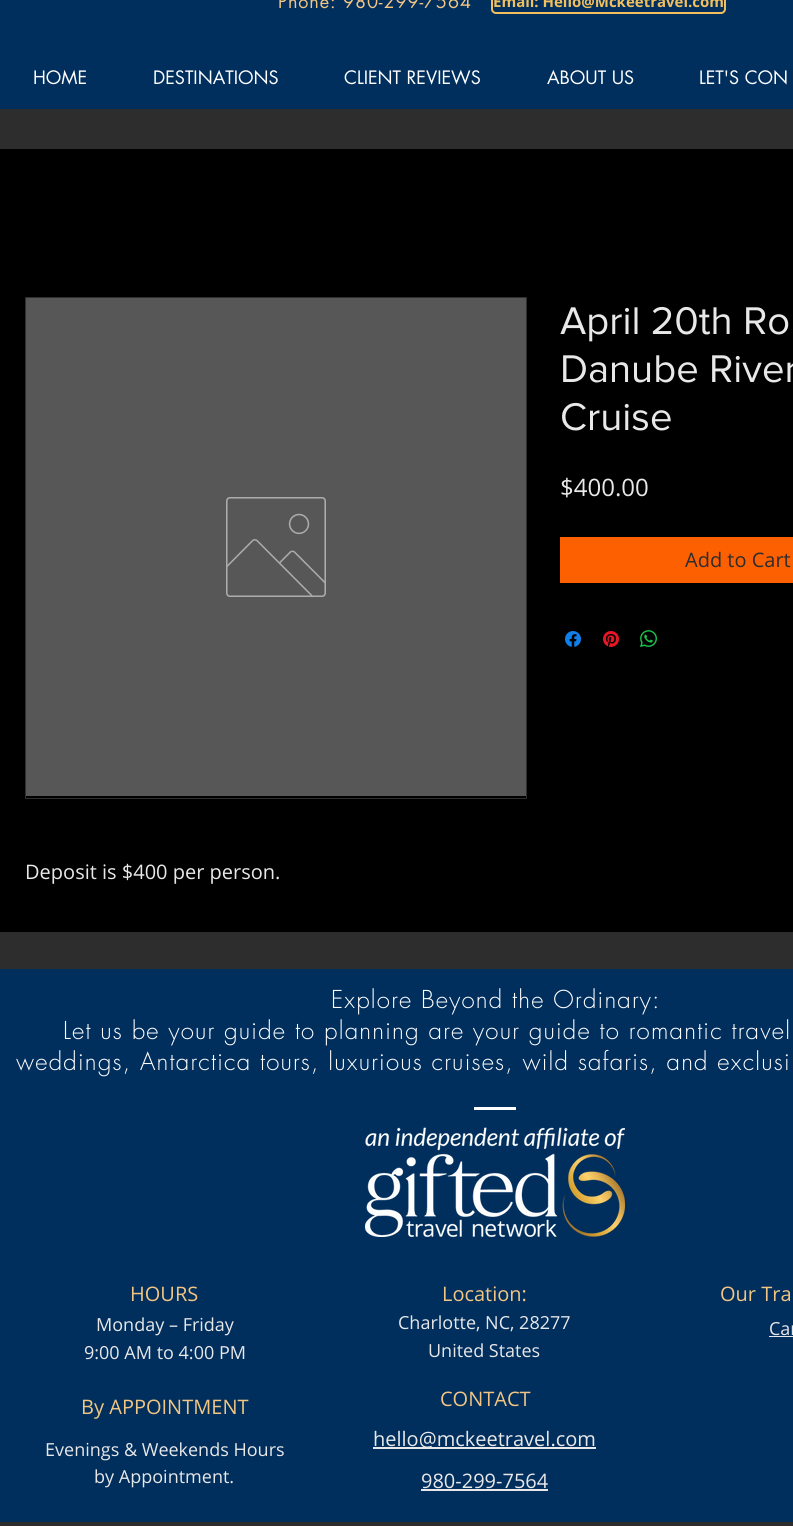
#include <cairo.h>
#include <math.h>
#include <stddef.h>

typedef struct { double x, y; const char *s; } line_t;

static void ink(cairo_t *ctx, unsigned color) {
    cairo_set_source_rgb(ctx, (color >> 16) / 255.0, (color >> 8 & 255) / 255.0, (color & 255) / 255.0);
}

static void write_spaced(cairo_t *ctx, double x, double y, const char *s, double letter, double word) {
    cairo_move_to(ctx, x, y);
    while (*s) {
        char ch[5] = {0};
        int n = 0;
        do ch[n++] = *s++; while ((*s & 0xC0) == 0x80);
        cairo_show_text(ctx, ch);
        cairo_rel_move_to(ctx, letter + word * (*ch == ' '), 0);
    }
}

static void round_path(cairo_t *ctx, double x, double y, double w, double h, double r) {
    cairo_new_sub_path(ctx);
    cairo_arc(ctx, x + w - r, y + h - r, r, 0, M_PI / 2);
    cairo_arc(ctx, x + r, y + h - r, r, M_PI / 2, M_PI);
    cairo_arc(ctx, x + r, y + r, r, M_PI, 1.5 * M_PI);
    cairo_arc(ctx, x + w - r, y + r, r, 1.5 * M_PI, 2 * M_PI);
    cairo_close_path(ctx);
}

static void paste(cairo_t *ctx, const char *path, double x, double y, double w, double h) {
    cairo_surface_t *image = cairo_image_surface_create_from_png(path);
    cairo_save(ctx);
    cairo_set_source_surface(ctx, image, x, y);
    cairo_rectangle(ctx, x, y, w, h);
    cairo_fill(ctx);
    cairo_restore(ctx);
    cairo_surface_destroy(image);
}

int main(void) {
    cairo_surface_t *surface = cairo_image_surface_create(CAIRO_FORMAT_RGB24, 793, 1526);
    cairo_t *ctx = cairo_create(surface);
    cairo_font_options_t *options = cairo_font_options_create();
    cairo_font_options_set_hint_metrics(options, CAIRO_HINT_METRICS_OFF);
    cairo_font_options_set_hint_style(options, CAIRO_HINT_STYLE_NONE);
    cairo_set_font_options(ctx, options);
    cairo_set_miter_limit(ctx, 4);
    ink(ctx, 0x2D2D2D);
    cairo_paint(ctx);
    ink(ctx, 0x002E5D);
    cairo_rectangle(ctx, 0, 0, 793, 109);
    cairo_fill(ctx);
    cairo_select_font_face(ctx, "futura", CAIRO_FONT_SLANT_NORMAL, CAIRO_FONT_WEIGHT_NORMAL);
    cairo_set_font_size(ctx, 18);
    ink(ctx, 0xF2C682);
    write_spaced(ctx, 278, 8, "Phone: 980-299-7564", 0.9, 0);
    round_path(ctx, 492, -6, 233, 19, 4);
    ink(ctx, 0xF2BF5E);
    cairo_stroke(ctx);
    cairo_select_font_face(ctx, "Open Sans", CAIRO_FONT_SLANT_NORMAL, CAIRO_FONT_WEIGHT_BOLD);
    cairo_set_font_size(ctx, 15);
    cairo_move_to(ctx, 493, 7);
    cairo_show_text(ctx, "Email: Hello@Mckeetravel.com");
    cairo_select_font_face(ctx, "futura", CAIRO_FONT_SLANT_NORMAL, CAIRO_FONT_WEIGHT_NORMAL);
    cairo_set_font_size(ctx, 18);
    ink(ctx, 0xFFFFFF);
    {
        static const line_t items[] = {
            {33, 84, "HOME"},
            {153, 84, "DESTINATIONS"},
            {344, 84, "CLIENT REVIEWS"},
            {547, 84, "ABOUT US"},
            {699, 84, "LET'S CON"},
        };
        for (size_t i = 0; i < sizeof items / sizeof *items; i++) {
            cairo_move_to(ctx, items[i].x, items[i].y);
            cairo_show_text(ctx, items[i].s);
        }
    }
    ink(ctx, 0x000000);
    cairo_rectangle(ctx, 0, 149, 793, 783);
    cairo_fill(ctx);
    cairo_select_font_face(ctx, "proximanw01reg", CAIRO_FONT_SLANT_NORMAL, CAIRO_FONT_WEIGHT_NORMAL);
    cairo_set_font_size(ctx, 40);
    ink(ctx, 0xE8E8E8);
    {
        static const line_t items[] = {
            {560, 334, "April 20th Ro"},
            {560, 382, "Danube River"},
            {560, 430, "Cruise"},
        };
        for (size_t i = 0; i < sizeof items / sizeof *items; i++) {
            cairo_move_to(ctx, items[i].x, items[i].y);
            cairo_show_text(ctx, items[i].s);
        }
    }
    cairo_select_font_face(ctx, "Open Sans", CAIRO_FONT_SLANT_NORMAL, CAIRO_FONT_WEIGHT_NORMAL);
    cairo_set_font_size(ctx, 24);
    cairo_move_to(ctx, 560, 496);
    cairo_show_text(ctx, "$400.00");
    ink(ctx, 0xFC6000);
    cairo_rectangle(ctx, 560, 537, 233, 46);
    cairo_fill(ctx);
    cairo_set_font_size(ctx, 20);
    ink(ctx, 0x2D2D2D);
    cairo_move_to(ctx, 685, 567);
    cairo_show_text(ctx, "Add to Cart");
    paste(ctx, "media/1.png", 565, 631, 16, 16);
    paste(ctx, "media/2.png", 603, 631, 16, 16);
    paste(ctx, "media/3.png", 640, 630, 17, 17);
    cairo_rectangle(ctx, 25.5, 297.5, 501, 501);
    ink(ctx, 0x2E2E2E);
    cairo_set_line_width(ctx, 1);
    cairo_stroke(ctx);
    ink(ctx, 0x575757);
    cairo_rectangle(ctx, 26, 298, 500, 498);
    cairo_fill(ctx);
    paste(ctx, "media/4.png", 226, 497, 100, 100);
    ink(ctx, 0xE8E8E8);
    cairo_move_to(ctx, 25, 879);
    cairo_show_text(ctx, "Deposit is $400 per person.");
    ink(ctx, 0x002E5D);
    cairo_rectangle(ctx, 0, 969, 793, 553);
    cairo_fill(ctx);
    cairo_select_font_face(ctx, "futura Light", CAIRO_FONT_SLANT_NORMAL, CAIRO_FONT_WEIGHT_NORMAL);
    cairo_set_font_size(ctx, 24);
    ink(ctx, 0xFFFFFF);
    {
        static const line_t items[] = {
            {331, 1008, "Explore Beyond the Ordinary:"},
            {63, 1039, "Let us be your guide to planning are your guide to romantic travel"},
            {16, 1070, "weddings, Antarctica tours, luxurious cruises, wild safaris, and exclusi"},
        };
        for (size_t i = 0; i < sizeof items / sizeof *items; i++) {
            write_spaced(ctx, items[i].x, items[i].y, items[i].s, 1.2, 0);
        }
    }
    cairo_rectangle(ctx, 474, 1107, 42, 3);
    cairo_fill(ctx);
    paste(ctx, "media/5.png", 365, 1127, 260, 110);
    cairo_select_font_face(ctx, "Open Sans", CAIRO_FONT_SLANT_NORMAL, CAIRO_FONT_WEIGHT_NORMAL);
    cairo_set_font_size(ctx, 20);
    ink(ctx, 0xF2C682);
    cairo_move_to(ctx, 130, 1301);
    cairo_show_text(ctx, "HOURS");
    cairo_set_font_size(ctx, 18);
    ink(ctx, 0xE8E8E8);
    cairo_move_to(ctx, 96, 1331);
    cairo_show_text(ctx, "Monday – Friday");
    cairo_move_to(ctx, 84, 1359);
    cairo_show_text(ctx, "9:00 AM to 4:00 PM");
    cairo_set_font_size(ctx, 20);
    ink(ctx, 0xF2C682);
    cairo_move_to(ctx, 81, 1414);
    cairo_show_text(ctx, "By APPOINTMENT");
    cairo_set_font_size(ctx, 18);
    ink(ctx, 0xE8E8E8);
    cairo_move_to(ctx, 45, 1456);
    cairo_show_text(ctx, "Evenings & Weekends Hours");
    cairo_move_to(ctx, 94, 1483);
    cairo_show_text(ctx, "by Appointment.");
    cairo_set_font_size(ctx, 20);
    ink(ctx, 0xF2C682);
    cairo_move_to(ctx, 442, 1301);
    cairo_show_text(ctx, "Location:");
    cairo_set_font_size(ctx, 18);
    ink(ctx, 0xE8E8E8);
    cairo_move_to(ctx, 398, 1329);
    cairo_show_text(ctx, "Charlotte, NC, 28277");
    cairo_move_to(ctx, 428, 1357);
    cairo_show_text(ctx, "United States");
    cairo_set_font_size(ctx, 20);
    ink(ctx, 0xF2C682);
    cairo_move_to(ctx, 440, 1406);
    cairo_show_text(ctx, "CONTACT");
    ink(ctx, 0xE8E8E8);
    cairo_rectangle(ctx, 373, 1447, 223, 2);
    cairo_fill(ctx);
    cairo_move_to(ctx, 373, 1446);
    cairo_show_text(ctx, "hello@mckeetravel.com");
    cairo_move_to(ctx, 421, 1488);
    cairo_show_text(ctx, "980-299-7564");
    cairo_rectangle(ctx, 421, 1489, 127, 2);
    cairo_fill(ctx);
    ink(ctx, 0xF2C682);
    cairo_move_to(ctx, 720, 1301);
    cairo_show_text(ctx, "Our Tra");
    cairo_set_font_size(ctx, 18);
    ink(ctx, 0xE8E8E8);
    cairo_move_to(ctx, 769, 1335);
    cairo_show_text(ctx, "Car");
    cairo_rectangle(ctx, 769, 1336, 24, 1);
    cairo_fill(ctx);
    cairo_surface_write_to_png(surface, "image.png");
    cairo_font_options_destroy(options);
    cairo_destroy(ctx);
    cairo_surface_destroy(surface);
    return 0;
}
